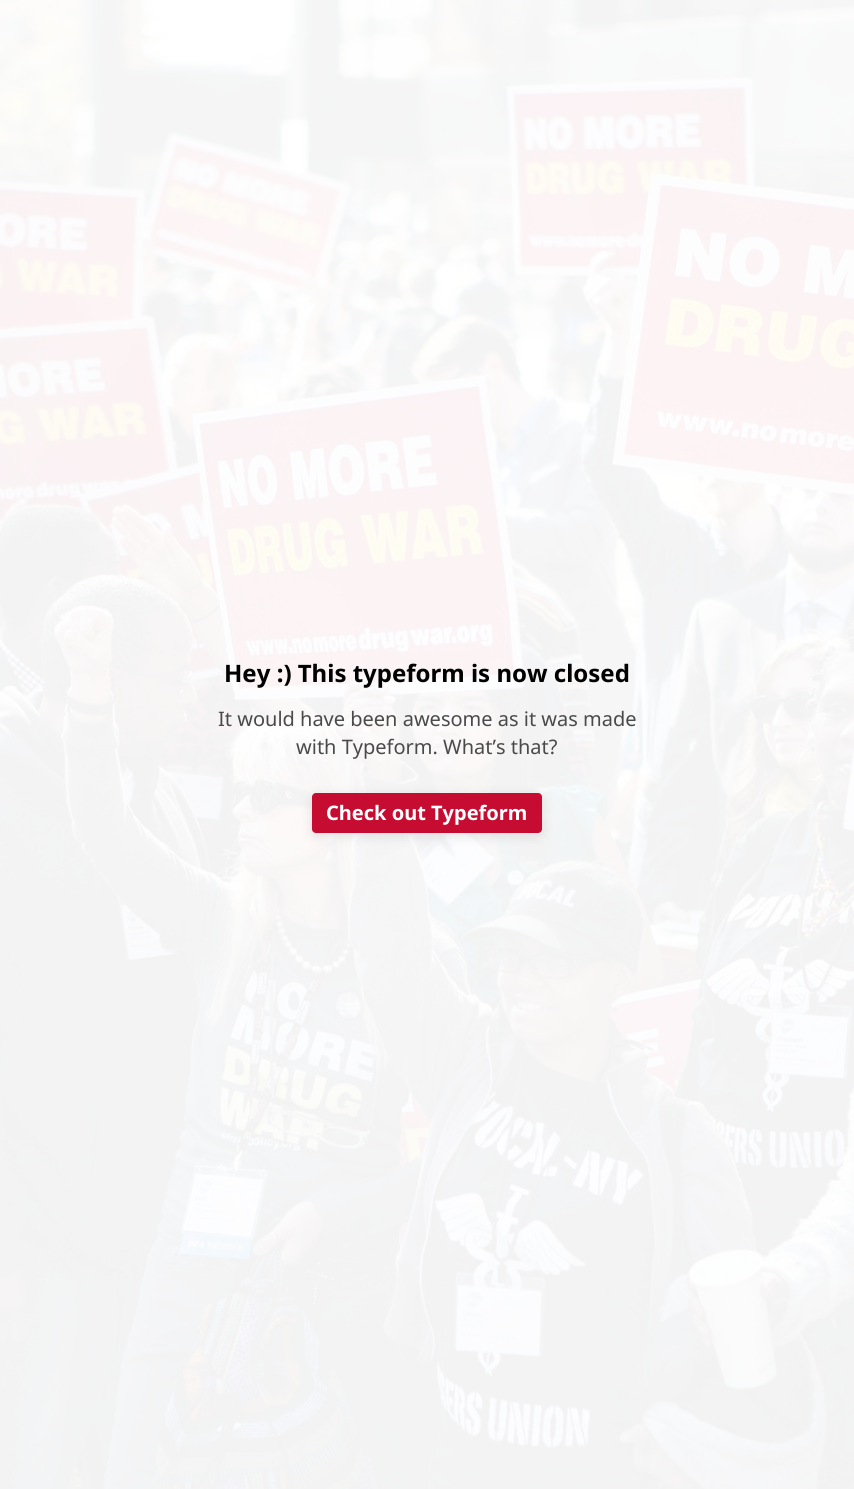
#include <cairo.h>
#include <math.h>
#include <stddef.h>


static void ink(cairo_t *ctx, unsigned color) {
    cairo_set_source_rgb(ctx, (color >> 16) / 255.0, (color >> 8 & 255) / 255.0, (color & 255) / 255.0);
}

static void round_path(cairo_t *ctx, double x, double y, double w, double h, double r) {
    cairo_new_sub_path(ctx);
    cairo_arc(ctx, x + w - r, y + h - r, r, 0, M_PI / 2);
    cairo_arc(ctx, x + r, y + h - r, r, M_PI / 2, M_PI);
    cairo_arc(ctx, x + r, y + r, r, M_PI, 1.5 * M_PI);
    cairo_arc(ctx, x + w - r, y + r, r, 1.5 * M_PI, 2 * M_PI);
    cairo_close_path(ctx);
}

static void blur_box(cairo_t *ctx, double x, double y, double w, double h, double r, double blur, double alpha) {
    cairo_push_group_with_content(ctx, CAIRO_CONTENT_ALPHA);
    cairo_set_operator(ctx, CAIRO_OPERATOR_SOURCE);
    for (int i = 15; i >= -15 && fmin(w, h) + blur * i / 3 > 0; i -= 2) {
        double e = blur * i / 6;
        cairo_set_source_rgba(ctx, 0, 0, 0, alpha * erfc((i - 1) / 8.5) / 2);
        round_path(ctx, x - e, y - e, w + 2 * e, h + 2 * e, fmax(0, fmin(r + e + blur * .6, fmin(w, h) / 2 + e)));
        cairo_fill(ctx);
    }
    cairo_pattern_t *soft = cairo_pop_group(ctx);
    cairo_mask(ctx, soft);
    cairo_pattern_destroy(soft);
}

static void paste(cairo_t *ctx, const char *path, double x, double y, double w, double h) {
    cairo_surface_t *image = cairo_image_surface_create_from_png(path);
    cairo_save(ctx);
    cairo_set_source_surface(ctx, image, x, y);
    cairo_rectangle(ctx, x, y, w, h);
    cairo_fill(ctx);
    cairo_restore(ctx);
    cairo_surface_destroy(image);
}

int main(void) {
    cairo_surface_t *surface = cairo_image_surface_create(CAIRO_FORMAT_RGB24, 854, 1489);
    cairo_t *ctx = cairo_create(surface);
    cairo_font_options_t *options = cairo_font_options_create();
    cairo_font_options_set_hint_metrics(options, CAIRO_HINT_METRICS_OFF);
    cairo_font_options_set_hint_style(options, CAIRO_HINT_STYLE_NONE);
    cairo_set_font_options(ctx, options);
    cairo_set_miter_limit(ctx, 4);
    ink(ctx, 0xFFFFFF);
    cairo_paint(ctx);
    paste(ctx, "media/1.png", 0, 0, 854, 1489);
    cairo_select_font_face(ctx, "Noto Sans", CAIRO_FONT_SLANT_NORMAL, CAIRO_FONT_WEIGHT_BOLD);
    cairo_set_font_size(ctx, 24);
    ink(ctx, 0x000000);
    cairo_move_to(ctx, 224, 682);
    cairo_show_text(ctx, "Hey :) This typeform is now closed");
    cairo_select_font_face(ctx, "Noto Sans", CAIRO_FONT_SLANT_NORMAL, CAIRO_FONT_WEIGHT_NORMAL);
    cairo_set_font_size(ctx, 20);
    ink(ctx, 0x4B4A4A);
    cairo_move_to(ctx, 218, 726);
    cairo_show_text(ctx, "It would have been awesome as it was made");
    cairo_move_to(ctx, 296, 754);
    cairo_show_text(ctx, "with Typeform. What’s that?");
    ink(ctx, 0x000000);
    blur_box(ctx, 312, 796, 230, 40, 4, 6, 0.1);
    ink(ctx, 0xC60C30);
    round_path(ctx, 312, 793, 230, 40, 4);
    cairo_fill(ctx);
    cairo_select_font_face(ctx, "Noto Sans", CAIRO_FONT_SLANT_NORMAL, CAIRO_FONT_WEIGHT_BOLD);
    ink(ctx, 0xFFFFFF);
    cairo_move_to(ctx, 326, 820);
    cairo_show_text(ctx, "Check out Typeform");
    cairo_surface_write_to_png(surface, "image.png");
    cairo_font_options_destroy(options);
    cairo_destroy(ctx);
    cairo_surface_destroy(surface);
    return 0;
}
